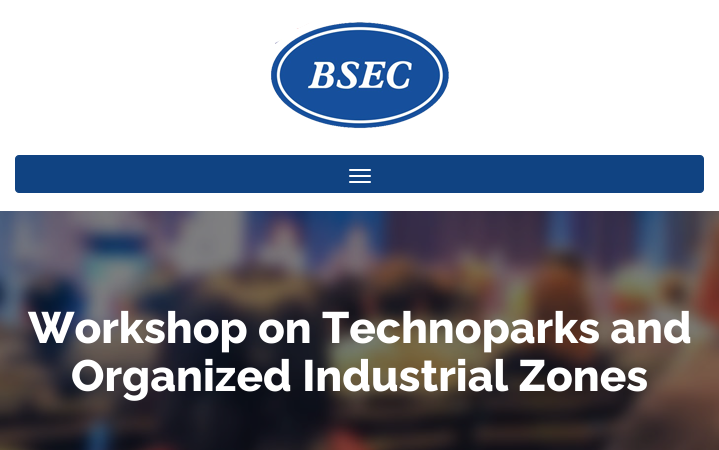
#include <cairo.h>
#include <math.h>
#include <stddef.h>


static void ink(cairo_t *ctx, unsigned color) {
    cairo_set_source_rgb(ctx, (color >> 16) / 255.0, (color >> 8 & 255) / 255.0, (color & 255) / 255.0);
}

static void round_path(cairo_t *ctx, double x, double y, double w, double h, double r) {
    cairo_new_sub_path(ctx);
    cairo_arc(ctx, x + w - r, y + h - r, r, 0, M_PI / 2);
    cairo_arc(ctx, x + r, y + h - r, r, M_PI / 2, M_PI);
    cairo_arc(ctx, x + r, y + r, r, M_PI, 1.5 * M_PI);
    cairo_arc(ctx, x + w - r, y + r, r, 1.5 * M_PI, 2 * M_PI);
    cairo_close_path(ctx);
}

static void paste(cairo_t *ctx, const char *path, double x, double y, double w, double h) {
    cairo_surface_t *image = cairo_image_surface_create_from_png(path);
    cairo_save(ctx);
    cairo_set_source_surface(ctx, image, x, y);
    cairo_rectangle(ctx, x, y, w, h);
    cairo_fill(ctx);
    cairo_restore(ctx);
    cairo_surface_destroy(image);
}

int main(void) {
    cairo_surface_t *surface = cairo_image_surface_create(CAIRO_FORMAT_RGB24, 719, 450);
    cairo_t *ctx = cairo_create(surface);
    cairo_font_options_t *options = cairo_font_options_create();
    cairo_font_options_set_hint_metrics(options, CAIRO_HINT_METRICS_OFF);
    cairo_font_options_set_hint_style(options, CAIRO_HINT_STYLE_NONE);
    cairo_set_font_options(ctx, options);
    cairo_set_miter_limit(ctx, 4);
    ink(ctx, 0xFFFFFF);
    cairo_paint(ctx);
    paste(ctx, "media/1.png", 271, 22, 178, 107);
    ink(ctx, 0x104382);
    round_path(ctx, 15.5, 155.5, 688, 37, 3.5);
    cairo_fill_preserve(ctx);
    cairo_set_line_width(ctx, 1);
    cairo_stroke(ctx);
    ink(ctx, 0xFFFFFF);
    round_path(ctx, 349, 169, 22, 2, 1);
    cairo_fill(ctx);
    round_path(ctx, 349, 175, 22, 2, 1);
    cairo_fill(ctx);
    round_path(ctx, 349, 181, 22, 2, 1);
    cairo_fill(ctx);
    paste(ctx, "media/2.png", 0, 211, 719, 239);
    cairo_select_font_face(ctx, "Raleway ExtraBold", CAIRO_FONT_SLANT_NORMAL, CAIRO_FONT_WEIGHT_NORMAL);
    cairo_set_font_size(ctx, 44);
    cairo_move_to(ctx, 28, 343);
    cairo_show_text(ctx, "Workshop on Technoparks and");
    cairo_move_to(ctx, 71, 391);
    cairo_show_text(ctx, "Organized Industrial Zones");
    cairo_surface_write_to_png(surface, "image.png");
    cairo_font_options_destroy(options);
    cairo_destroy(ctx);
    cairo_surface_destroy(surface);
    return 0;
}
